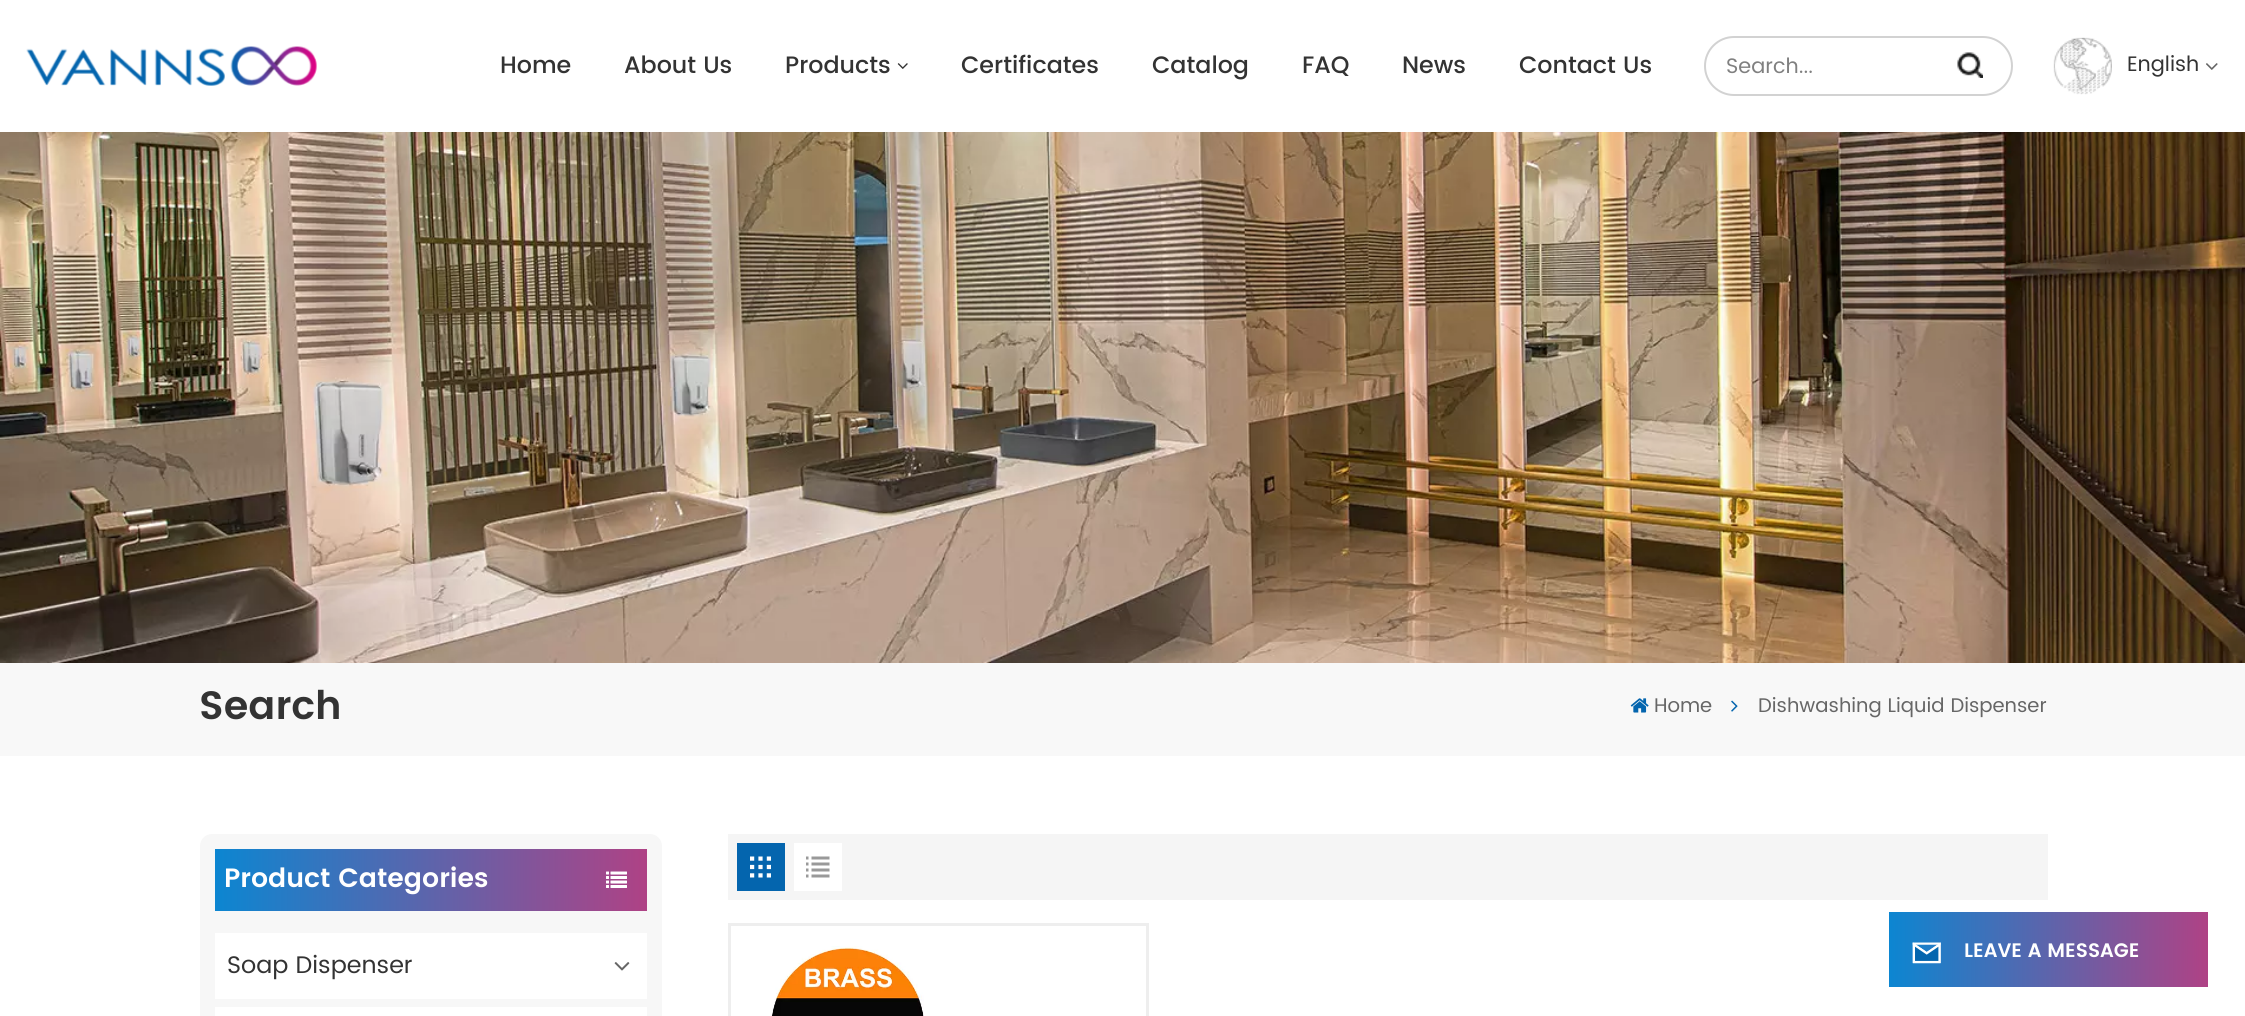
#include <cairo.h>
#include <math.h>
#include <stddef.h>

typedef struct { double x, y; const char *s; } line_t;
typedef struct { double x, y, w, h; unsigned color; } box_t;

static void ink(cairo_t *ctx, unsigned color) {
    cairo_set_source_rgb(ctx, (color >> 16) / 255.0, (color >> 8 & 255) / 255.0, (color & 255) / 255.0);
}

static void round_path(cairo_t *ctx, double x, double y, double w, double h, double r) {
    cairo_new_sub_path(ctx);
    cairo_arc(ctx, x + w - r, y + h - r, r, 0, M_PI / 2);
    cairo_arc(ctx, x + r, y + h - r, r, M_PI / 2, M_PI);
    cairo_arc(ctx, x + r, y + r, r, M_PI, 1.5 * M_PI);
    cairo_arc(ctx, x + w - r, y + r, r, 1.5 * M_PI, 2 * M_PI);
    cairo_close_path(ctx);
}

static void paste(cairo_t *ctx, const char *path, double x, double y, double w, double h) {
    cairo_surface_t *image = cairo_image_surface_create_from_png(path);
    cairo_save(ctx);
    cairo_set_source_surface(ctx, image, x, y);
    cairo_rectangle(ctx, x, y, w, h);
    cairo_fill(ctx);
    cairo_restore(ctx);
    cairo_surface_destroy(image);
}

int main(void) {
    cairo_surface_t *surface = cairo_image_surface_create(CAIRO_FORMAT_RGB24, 2245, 1016);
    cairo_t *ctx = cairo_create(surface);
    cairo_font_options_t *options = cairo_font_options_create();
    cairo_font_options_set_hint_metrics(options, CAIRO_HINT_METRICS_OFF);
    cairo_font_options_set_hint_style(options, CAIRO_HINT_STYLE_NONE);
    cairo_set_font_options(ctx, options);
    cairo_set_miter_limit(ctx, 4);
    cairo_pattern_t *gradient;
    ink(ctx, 0xFFFFFF);
    cairo_paint(ctx);
    paste(ctx, "media/1.png", 26, 46, 291, 40);
    cairo_select_font_face(ctx, "Poppins Medium", CAIRO_FONT_SLANT_NORMAL, CAIRO_FONT_WEIGHT_NORMAL);
    cairo_set_font_size(ctx, 23.75);
    ink(ctx, 0x333333);
    {
        static const line_t items[] = {
            {500, 73, "Home"},
            {624, 73, "About Us"},
            {785, 73, "Products"},
        };
        for (size_t i = 0; i < sizeof items / sizeof *items; i++) {
            cairo_move_to(ctx, items[i].x, items[i].y);
            cairo_show_text(ctx, items[i].s);
        }
    }
    paste(ctx, "media/2.png", 897, 63, 11, 6);
    {
        static const line_t items[] = {
            {961, 73, "Certificates"},
            {1152, 73, "Catalog"},
            {1302, 73, "FAQ"},
            {1402, 73, "News"},
            {1519, 73, "Contact Us"},
        };
        for (size_t i = 0; i < sizeof items / sizeof *items; i++) {
            cairo_move_to(ctx, items[i].x, items[i].y);
            cairo_show_text(ctx, items[i].s);
        }
    }
    round_path(ctx, 1705, 37, 307, 58, 29);
    ink(ctx, 0xD2D2D2);
    cairo_stroke(ctx);
    cairo_select_font_face(ctx, "Poppins", CAIRO_FONT_SLANT_NORMAL, CAIRO_FONT_WEIGHT_NORMAL);
    cairo_set_font_size(ctx, 21);
    ink(ctx, 0x808080);
    cairo_move_to(ctx, 1726, 73);
    cairo_show_text(ctx, "Search...");
    paste(ctx, "media/3.png", 1957, 52, 26, 26);
    paste(ctx, "media/4.png", 2053, 37, 59, 58);
    ink(ctx, 0x333333);
    cairo_move_to(ctx, 2127, 71);
    cairo_show_text(ctx, "English");
    paste(ctx, "media/5.png", 2206, 63, 12, 7);
    paste(ctx, "media/6.png", 0, 132, 2245, 531);
    ink(ctx, 0xF8F8F8);
    cairo_rectangle(ctx, 0, 663, 2245, 93);
    cairo_fill(ctx);
    cairo_select_font_face(ctx, "Poppins SemiBold", CAIRO_FONT_SLANT_NORMAL, CAIRO_FONT_WEIGHT_NORMAL);
    cairo_set_font_size(ctx, 39.5);
    ink(ctx, 0x333333);
    cairo_move_to(ctx, 199, 719);
    cairo_show_text(ctx, "Search");
    paste(ctx, "media/7.png", 1630, 698, 19, 15);
    cairo_select_font_face(ctx, "Poppins", CAIRO_FONT_SLANT_NORMAL, CAIRO_FONT_WEIGHT_NORMAL);
    cairo_set_font_size(ctx, 19.75);
    ink(ctx, 0x666666);
    cairo_move_to(ctx, 1654, 712);
    cairo_show_text(ctx, "Home");
    paste(ctx, "media/8.png", 1731, 700, 7, 12);
    cairo_move_to(ctx, 1758, 712);
    cairo_show_text(ctx, "Dishwashing Liquid Dispenser");
    ink(ctx, 0xF7F7F7);
    round_path(ctx, 200, 834, 462, 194, 12);
    cairo_fill(ctx);
    gradient = cairo_pattern_create_linear(215, 880, 647, 880);
    cairo_pattern_add_color_stop_rgba(gradient, 0, 0.047, 0.525, 0.82, 1);
    cairo_pattern_add_color_stop_rgba(gradient, 1, 0.686, 0.259, 0.522, 1);
    cairo_set_source(ctx, gradient);
    cairo_pattern_destroy(gradient);
    cairo_rectangle(ctx, 215, 849, 432, 62);
    cairo_fill(ctx);
    cairo_select_font_face(ctx, "Poppins SemiBold", CAIRO_FONT_SLANT_NORMAL, CAIRO_FONT_WEIGHT_NORMAL);
    cairo_set_font_size(ctx, 26.5);
    ink(ctx, 0xFFFFFF);
    cairo_move_to(ctx, 224, 887);
    cairo_show_text(ctx, "Product Categories");
    paste(ctx, "media/9.png", 606, 871, 21, 17);
    cairo_rectangle(ctx, 215, 933, 432, 66);
    cairo_fill(ctx);
    cairo_select_font_face(ctx, "Poppins", CAIRO_FONT_SLANT_NORMAL, CAIRO_FONT_WEIGHT_NORMAL);
    cairo_set_font_size(ctx, 24);
    ink(ctx, 0x333333);
    cairo_move_to(ctx, 227, 973);
    cairo_show_text(ctx, "Soap Dispenser");
    paste(ctx, "media/10.png", 614, 962, 16, 9);
    {
        static const box_t items[] = {
            {215, 1007, 432, 9, 0xFFFFFF},
            {728, 834, 1320, 66, 0xF5F5F5},
            {737, 843, 48, 48, 0x0465AE},
        };
        for (size_t i = 0; i < sizeof items / sizeof *items; i++) {
            ink(ctx, items[i].color);
            cairo_rectangle(ctx, items[i].x, items[i].y, items[i].w, items[i].h);
            cairo_fill(ctx);
        }
    }
    paste(ctx, "media/11.png", 750, 856, 21, 22);
    ink(ctx, 0xFFFFFF);
    cairo_rectangle(ctx, 794, 843, 48, 48);
    cairo_fill(ctx);
    paste(ctx, "media/12.png", 806, 856, 24, 22);
    cairo_rectangle(ctx, 729.5, 924.5, 418, 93);
    ink(ctx, 0xEEEEEE);
    cairo_set_line_width(ctx, 3);
    cairo_stroke(ctx);
    paste(ctx, "media/13.png", 771, 946, 153, 70);
    gradient = cairo_pattern_create_linear(1889, 950, 2208, 950);
    cairo_pattern_add_color_stop_rgba(gradient, 0, 0.047, 0.525, 0.82, 1);
    cairo_pattern_add_color_stop_rgba(gradient, 1, 0.686, 0.259, 0.522, 1);
    cairo_set_source(ctx, gradient);
    cairo_pattern_destroy(gradient);
    cairo_rectangle(ctx, 1889, 912, 319, 75);
    cairo_fill(ctx);
    paste(ctx, "media/14.png", 1912, 942, 29, 22);
    cairo_select_font_face(ctx, "Poppins SemiBold", CAIRO_FONT_SLANT_NORMAL, CAIRO_FONT_WEIGHT_NORMAL);
    cairo_set_font_size(ctx, 19.5);
    ink(ctx, 0xFFFFFF);
    cairo_move_to(ctx, 1964, 957);
    cairo_show_text(ctx, "LEAVE A MESSAGE");
    cairo_surface_write_to_png(surface, "image.png");
    cairo_font_options_destroy(options);
    cairo_destroy(ctx);
    cairo_surface_destroy(surface);
    return 0;
}
